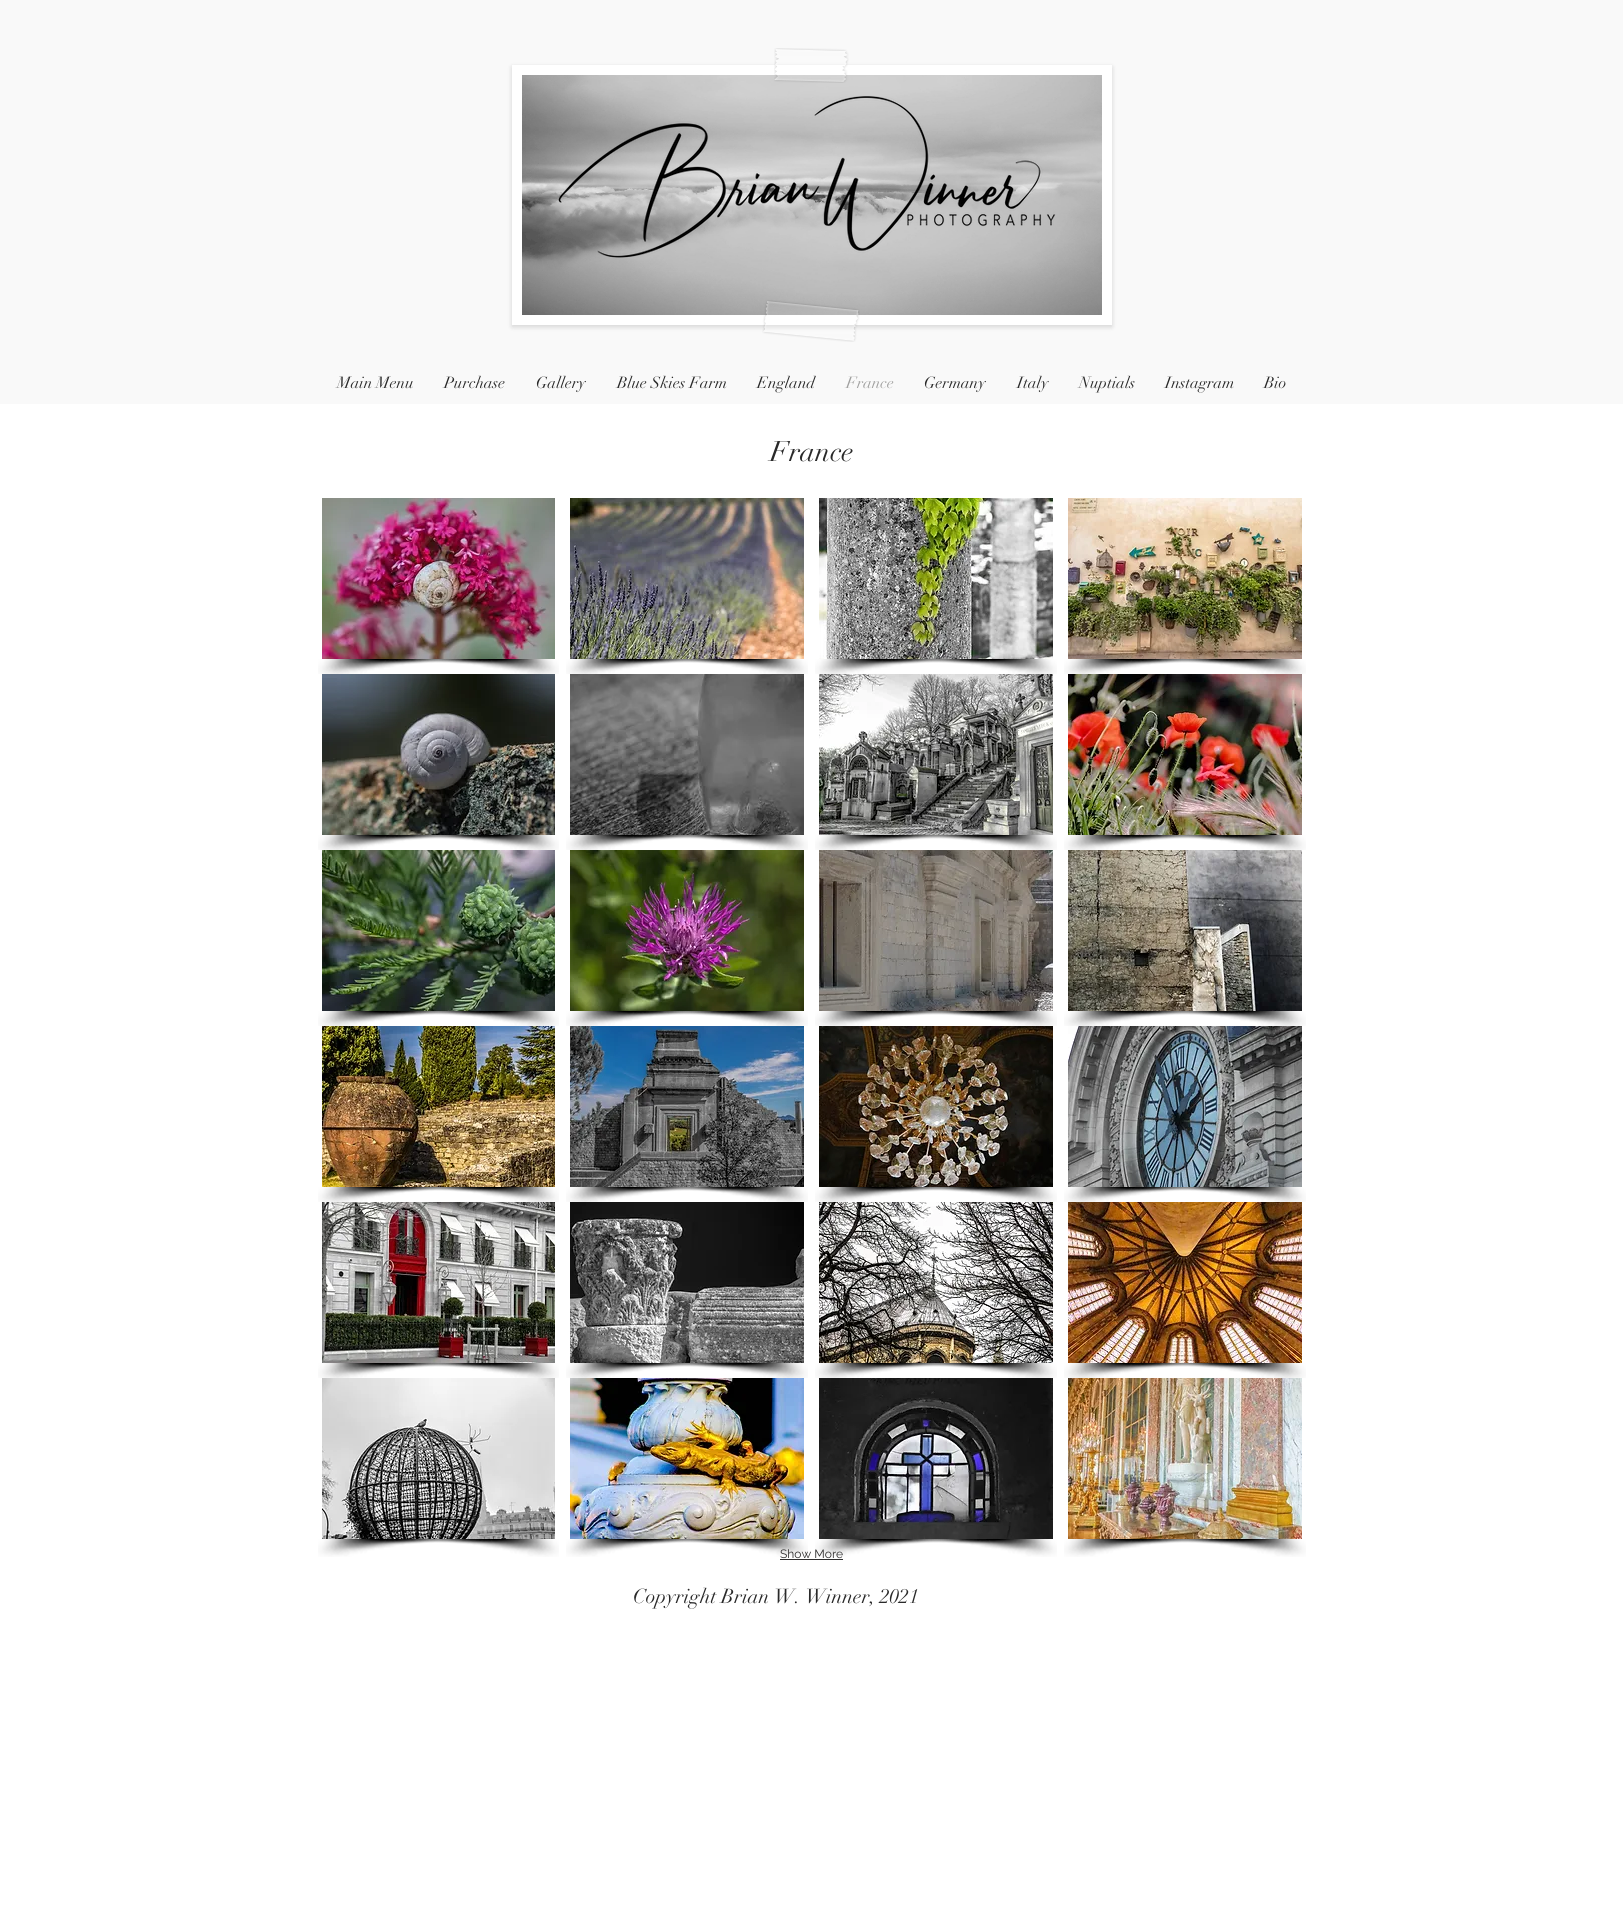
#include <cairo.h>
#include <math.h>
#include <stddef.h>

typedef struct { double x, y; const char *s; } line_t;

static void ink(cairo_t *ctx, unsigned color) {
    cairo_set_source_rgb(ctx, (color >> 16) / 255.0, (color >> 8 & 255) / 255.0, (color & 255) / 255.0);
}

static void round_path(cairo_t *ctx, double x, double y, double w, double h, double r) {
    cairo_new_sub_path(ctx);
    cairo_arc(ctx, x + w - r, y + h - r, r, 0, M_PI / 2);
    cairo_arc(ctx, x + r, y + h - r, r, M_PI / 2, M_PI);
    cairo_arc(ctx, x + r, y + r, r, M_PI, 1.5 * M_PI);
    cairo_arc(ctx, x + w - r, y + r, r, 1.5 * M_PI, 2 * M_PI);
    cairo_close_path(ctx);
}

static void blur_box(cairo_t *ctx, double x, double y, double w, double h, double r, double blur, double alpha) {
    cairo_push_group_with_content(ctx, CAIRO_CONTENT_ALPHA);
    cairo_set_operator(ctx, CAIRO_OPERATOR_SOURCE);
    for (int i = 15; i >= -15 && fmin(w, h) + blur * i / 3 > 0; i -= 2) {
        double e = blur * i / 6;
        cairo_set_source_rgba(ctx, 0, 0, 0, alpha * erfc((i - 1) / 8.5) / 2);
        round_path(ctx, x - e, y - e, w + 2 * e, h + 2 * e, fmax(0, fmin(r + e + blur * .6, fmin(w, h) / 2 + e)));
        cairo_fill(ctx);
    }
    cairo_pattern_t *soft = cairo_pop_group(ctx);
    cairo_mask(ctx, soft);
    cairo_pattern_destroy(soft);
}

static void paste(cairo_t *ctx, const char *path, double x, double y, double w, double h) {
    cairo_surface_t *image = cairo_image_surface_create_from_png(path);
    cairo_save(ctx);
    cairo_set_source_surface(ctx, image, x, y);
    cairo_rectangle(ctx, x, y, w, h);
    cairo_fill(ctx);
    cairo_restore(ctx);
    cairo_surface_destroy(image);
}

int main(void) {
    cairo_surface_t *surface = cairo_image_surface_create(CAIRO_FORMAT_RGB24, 1623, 1928);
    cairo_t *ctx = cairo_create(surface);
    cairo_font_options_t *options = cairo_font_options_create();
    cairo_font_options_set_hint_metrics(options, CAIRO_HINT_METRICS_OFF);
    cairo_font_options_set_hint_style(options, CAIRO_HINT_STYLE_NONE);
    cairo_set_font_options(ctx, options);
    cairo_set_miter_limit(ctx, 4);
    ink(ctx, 0xFFFFFF);
    cairo_paint(ctx);
    ink(ctx, 0xF9F9F9);
    cairo_rectangle(ctx, 0, 0, 1623, 404);
    cairo_fill(ctx);
    ink(ctx, 0x000000);
    blur_box(ctx, 512, 67, 600, 260, 0, 2.5, 0.15);
    cairo_rectangle(ctx, 517, 70, 590, 250);
    ink(ctx, 0xFFFFFF);
    cairo_set_line_width(ctx, 10);
    cairo_stroke(ctx);
    paste(ctx, "media/2.png", 522, 75, 580, 240);
    paste(ctx, "media/1.png", 774, 48, 75, 35);
    paste(ctx, "media/3.png", 762, 300, 98, 42);
    paste(ctx, "media/4.png", 558, 96, 498, 162);
    cairo_select_font_face(ctx, "didot", CAIRO_FONT_SLANT_NORMAL, CAIRO_FONT_WEIGHT_NORMAL);
    cairo_set_font_size(ctx, 16);
    ink(ctx, 0x292929);
    {
        static const line_t items[] = {
            {337, 388, "Main Menu"},
            {444, 388, "Purchase"},
            {536, 388, "Gallery"},
            {617, 388, "Blue Skies Farm"},
            {757, 388, "England"},
        };
        for (size_t i = 0; i < sizeof items / sizeof *items; i++) {
            cairo_move_to(ctx, items[i].x, items[i].y);
            cairo_show_text(ctx, items[i].s);
        }
    }
    ink(ctx, 0xA0A09F);
    cairo_move_to(ctx, 846, 388);
    cairo_show_text(ctx, "France");
    ink(ctx, 0x292929);
    {
        static const line_t items[] = {
            {924, 388, "Germany"},
            {1017, 388, "Italy"},
            {1079, 388, "Nuptials"},
            {1165, 388, "Instagram"},
            {1264, 388, "Bio"},
        };
        for (size_t i = 0; i < sizeof items / sizeof *items; i++) {
            cairo_move_to(ctx, items[i].x, items[i].y);
            cairo_show_text(ctx, items[i].s);
        }
    }
    cairo_set_font_size(ctx, 28);
    cairo_move_to(ctx, 770, 461);
    cairo_show_text(ctx, "France");
    paste(ctx, "media/5.png", 322, 498, 233, 161);
    paste(ctx, "media/6.png", 318, 659, 154, 15);
    paste(ctx, "media/7.png", 419, 659, 140, 15);
    paste(ctx, "media/8.png", 570, 498, 234, 161);
    paste(ctx, "media/6.png", 566, 659, 154, 15);
    paste(ctx, "media/9.png", 667, 659, 141, 15);
    paste(ctx, "media/10.png", 819, 498, 234, 161);
    paste(ctx, "media/6.png", 815, 659, 154, 15);
    paste(ctx, "media/9.png", 916, 659, 141, 15);
    paste(ctx, "media/11.png", 1068, 498, 234, 161);
    paste(ctx, "media/6.png", 1064, 659, 154, 15);
    paste(ctx, "media/9.png", 1165, 659, 141, 15);
    paste(ctx, "media/12.png", 322, 674, 233, 161);
    paste(ctx, "media/6.png", 318, 835, 154, 15);
    paste(ctx, "media/7.png", 419, 835, 140, 15);
    paste(ctx, "media/13.png", 570, 674, 234, 161);
    paste(ctx, "media/6.png", 566, 835, 154, 15);
    paste(ctx, "media/9.png", 667, 835, 141, 15);
    paste(ctx, "media/14.png", 819, 674, 234, 161);
    paste(ctx, "media/6.png", 815, 835, 154, 15);
    paste(ctx, "media/9.png", 916, 835, 141, 15);
    paste(ctx, "media/15.png", 1068, 674, 234, 161);
    paste(ctx, "media/6.png", 1064, 835, 154, 15);
    paste(ctx, "media/9.png", 1165, 835, 141, 15);
    paste(ctx, "media/16.png", 322, 850, 233, 161);
    paste(ctx, "media/6.png", 318, 1011, 154, 15);
    paste(ctx, "media/7.png", 419, 1011, 140, 15);
    paste(ctx, "media/17.png", 570, 850, 234, 161);
    paste(ctx, "media/6.png", 566, 1011, 154, 15);
    paste(ctx, "media/9.png", 667, 1011, 141, 15);
    paste(ctx, "media/18.png", 819, 850, 234, 161);
    paste(ctx, "media/6.png", 815, 1011, 154, 15);
    paste(ctx, "media/9.png", 916, 1011, 141, 15);
    paste(ctx, "media/19.png", 1068, 850, 234, 161);
    paste(ctx, "media/6.png", 1064, 1011, 154, 15);
    paste(ctx, "media/9.png", 1165, 1011, 141, 15);
    paste(ctx, "media/20.png", 322, 1026, 233, 161);
    paste(ctx, "media/6.png", 318, 1187, 154, 15);
    paste(ctx, "media/7.png", 419, 1187, 140, 15);
    paste(ctx, "media/21.png", 570, 1026, 234, 161);
    paste(ctx, "media/6.png", 566, 1187, 154, 15);
    paste(ctx, "media/9.png", 667, 1187, 141, 15);
    paste(ctx, "media/22.png", 819, 1026, 234, 161);
    paste(ctx, "media/6.png", 815, 1187, 154, 15);
    paste(ctx, "media/9.png", 916, 1187, 141, 15);
    paste(ctx, "media/23.png", 1068, 1026, 234, 161);
    paste(ctx, "media/6.png", 1064, 1187, 154, 15);
    paste(ctx, "media/9.png", 1165, 1187, 141, 15);
    paste(ctx, "media/24.png", 322, 1202, 233, 161);
    paste(ctx, "media/6.png", 318, 1363, 154, 15);
    paste(ctx, "media/7.png", 419, 1363, 140, 15);
    paste(ctx, "media/25.png", 570, 1202, 234, 161);
    paste(ctx, "media/6.png", 566, 1363, 154, 15);
    paste(ctx, "media/9.png", 667, 1363, 141, 15);
    paste(ctx, "media/26.png", 819, 1202, 234, 161);
    paste(ctx, "media/6.png", 815, 1363, 154, 15);
    paste(ctx, "media/9.png", 916, 1363, 141, 15);
    paste(ctx, "media/27.png", 1068, 1202, 234, 161);
    paste(ctx, "media/6.png", 1064, 1363, 154, 15);
    paste(ctx, "media/9.png", 1165, 1363, 141, 15);
    paste(ctx, "media/28.png", 322, 1378, 233, 161);
    paste(ctx, "media/29.png", 318, 1539, 154, 18);
    paste(ctx, "media/30.png", 419, 1539, 140, 18);
    paste(ctx, "media/31.png", 570, 1378, 234, 161);
    paste(ctx, "media/29.png", 566, 1539, 154, 18);
    paste(ctx, "media/32.png", 667, 1539, 141, 18);
    paste(ctx, "media/33.png", 819, 1378, 234, 161);
    paste(ctx, "media/29.png", 815, 1539, 154, 18);
    paste(ctx, "media/32.png", 916, 1539, 141, 18);
    paste(ctx, "media/34.png", 1068, 1378, 234, 161);
    paste(ctx, "media/29.png", 1064, 1539, 154, 18);
    paste(ctx, "media/32.png", 1165, 1539, 141, 18);
    cairo_select_font_face(ctx, "Raleway", CAIRO_FONT_SLANT_NORMAL, CAIRO_FONT_WEIGHT_NORMAL);
    cairo_set_font_size(ctx, 12);
    ink(ctx, 0x2F2E2E);
    cairo_move_to(ctx, 780, 1558);
    cairo_show_text(ctx, "Show More");
    cairo_rectangle(ctx, 780, 1559, 63, 1);
    cairo_fill(ctx);
    cairo_select_font_face(ctx, "didot", CAIRO_FONT_SLANT_NORMAL, CAIRO_FONT_WEIGHT_NORMAL);
    cairo_set_font_size(ctx, 20);
    ink(ctx, 0x292929);
    cairo_move_to(ctx, 633, 1603);
    cairo_show_text(ctx, "Copyright Brian W. Winner, 2021");
    cairo_surface_write_to_png(surface, "image.png");
    cairo_font_options_destroy(options);
    cairo_destroy(ctx);
    cairo_surface_destroy(surface);
    return 0;
}
